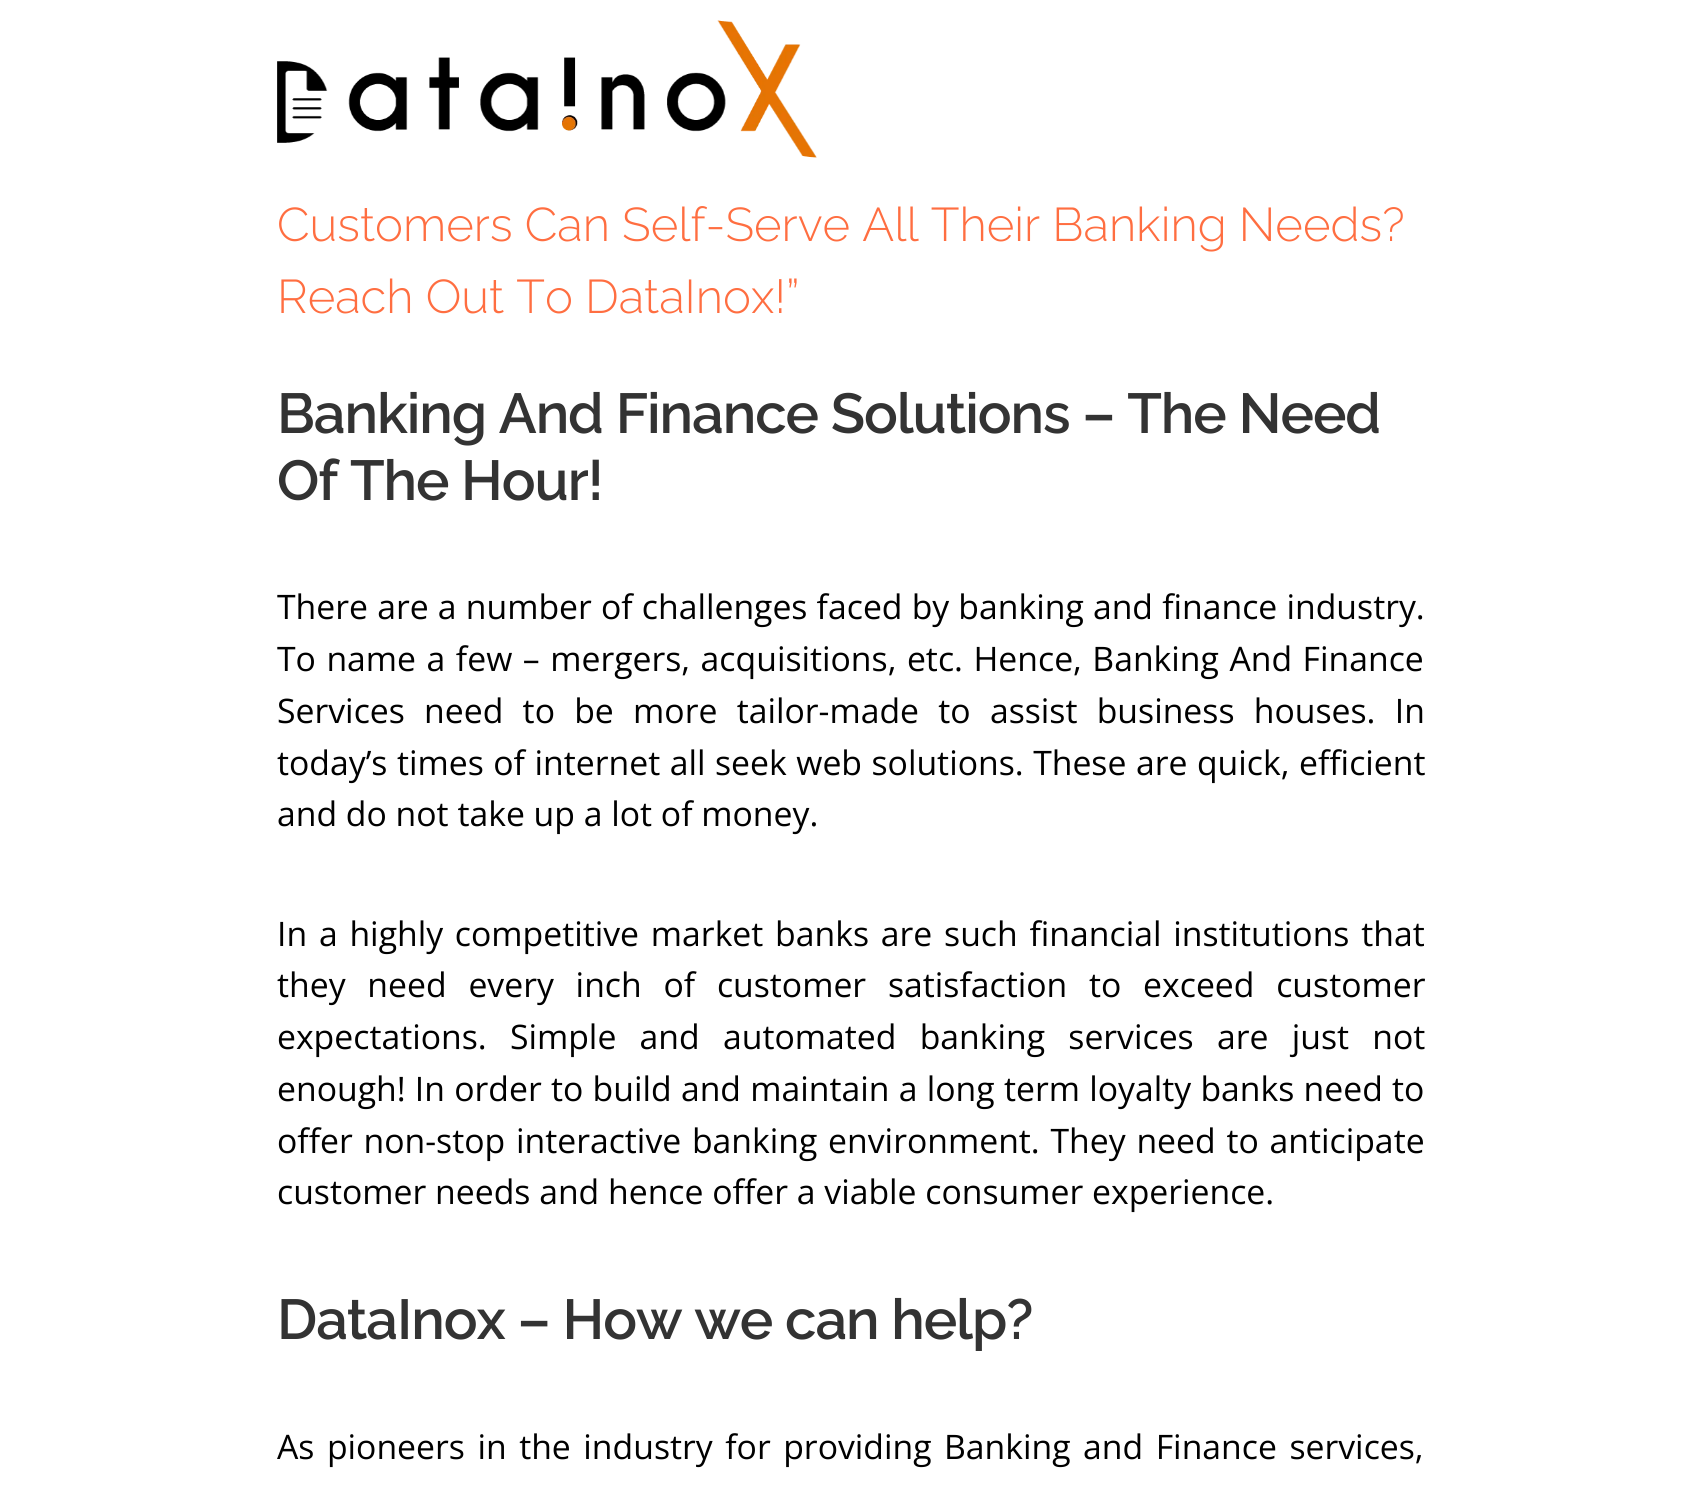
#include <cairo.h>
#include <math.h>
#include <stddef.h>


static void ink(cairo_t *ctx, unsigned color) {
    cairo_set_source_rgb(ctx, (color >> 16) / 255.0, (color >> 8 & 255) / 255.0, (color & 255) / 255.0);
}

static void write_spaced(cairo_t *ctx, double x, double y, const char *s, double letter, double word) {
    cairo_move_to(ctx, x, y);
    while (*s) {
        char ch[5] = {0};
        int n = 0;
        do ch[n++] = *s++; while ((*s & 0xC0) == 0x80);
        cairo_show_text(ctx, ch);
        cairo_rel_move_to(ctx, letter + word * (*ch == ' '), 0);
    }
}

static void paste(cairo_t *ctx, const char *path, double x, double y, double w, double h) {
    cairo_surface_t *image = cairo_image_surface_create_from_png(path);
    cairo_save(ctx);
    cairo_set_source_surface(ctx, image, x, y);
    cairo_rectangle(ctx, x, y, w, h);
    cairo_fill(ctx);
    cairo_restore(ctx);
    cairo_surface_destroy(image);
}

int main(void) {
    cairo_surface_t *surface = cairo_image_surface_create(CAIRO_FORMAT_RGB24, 1700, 1490);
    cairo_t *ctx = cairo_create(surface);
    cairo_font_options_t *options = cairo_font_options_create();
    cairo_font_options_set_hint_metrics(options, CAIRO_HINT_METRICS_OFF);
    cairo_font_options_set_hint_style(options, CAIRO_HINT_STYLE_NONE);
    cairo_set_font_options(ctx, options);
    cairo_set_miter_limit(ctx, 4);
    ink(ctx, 0xFFFFFF);
    cairo_paint(ctx);
    paste(ctx, "media/1.png", 277, 20, 540, 138);
    cairo_select_font_face(ctx, "Raleway Light", CAIRO_FONT_SLANT_NORMAL, CAIRO_FONT_WEIGHT_NORMAL);
    cairo_set_font_size(ctx, 47.25);
    ink(ctx, 0xFF6E41);
    cairo_move_to(ctx, 277, 241);
    cairo_show_text(ctx, "Customers Can Self-Serve All Their Banking Needs?");
    cairo_move_to(ctx, 277, 313);
    cairo_show_text(ctx, "Reach Out To DataInox!”");
    cairo_select_font_face(ctx, "Raleway SemiBold", CAIRO_FONT_SLANT_NORMAL, CAIRO_FONT_WEIGHT_NORMAL);
    cairo_set_font_size(ctx, 56.25);
    ink(ctx, 0x333333);
    write_spaced(ctx, 277, 433, "Banking And Finance Solutions – The Need", -1.1, 0);
    write_spaced(ctx, 277, 500, "Of The Hour!", -1.1, 0);
    cairo_select_font_face(ctx, "Open Sans", CAIRO_FONT_SLANT_NORMAL, CAIRO_FONT_WEIGHT_NORMAL);
    cairo_set_font_size(ctx, 33.75);
    ink(ctx, 0x000000);
    write_spaced(ctx, 277, 619, "There are a number of challenges faced by banking and finance industry.", 0, 0.4);
    write_spaced(ctx, 277, 671, "To name a few – mergers, acquisitions, etc. Hence, Banking And Finance", 0, 1.75);
    write_spaced(ctx, 277, 723, "Services need to be more tailor-made to assist business houses. In", 0, 10.5);
    write_spaced(ctx, 277, 775, "today’s times of internet all seek web solutions. These are quick, efficient", 0, 0.75);
    cairo_move_to(ctx, 277, 826);
    cairo_show_text(ctx, "and do not take up a lot of money.");
    write_spaced(ctx, 277, 946, "In a highly competitive market banks are such financial institutions that", 0, 3);
    write_spaced(ctx, 277, 997, "they need every inch of customer satisfaction to exceed customer", 0, 13);
    write_spaced(ctx, 277, 1049, "expectations. Simple and automated banking services are just not", 0, 14.5);
    write_spaced(ctx, 277, 1101, "enough! In order to build and maintain a long term loyalty banks need to", 0, 0.5);
    write_spaced(ctx, 277, 1153, "offer non-stop interactive banking environment. They need to anticipate", 0, 2);
    cairo_move_to(ctx, 277, 1204);
    cairo_show_text(ctx, "customer needs and hence offer a viable consumer experience.");
    cairo_select_font_face(ctx, "Raleway SemiBold", CAIRO_FONT_SLANT_NORMAL, CAIRO_FONT_WEIGHT_NORMAL);
    cairo_set_font_size(ctx, 56.25);
    ink(ctx, 0x333333);
    write_spaced(ctx, 277, 1339, "DataInox – How we can help?", -1.1, 0);
    cairo_select_font_face(ctx, "Open Sans", CAIRO_FONT_SLANT_NORMAL, CAIRO_FONT_WEIGHT_NORMAL);
    cairo_set_font_size(ctx, 33.75);
    ink(ctx, 0x000000);
    write_spaced(ctx, 277, 1459, "As pioneers in the industry for providing Banking and Finance services,", 0, 3.75);
    cairo_surface_write_to_png(surface, "image.png");
    cairo_font_options_destroy(options);
    cairo_destroy(ctx);
    cairo_surface_destroy(surface);
    return 0;
}
